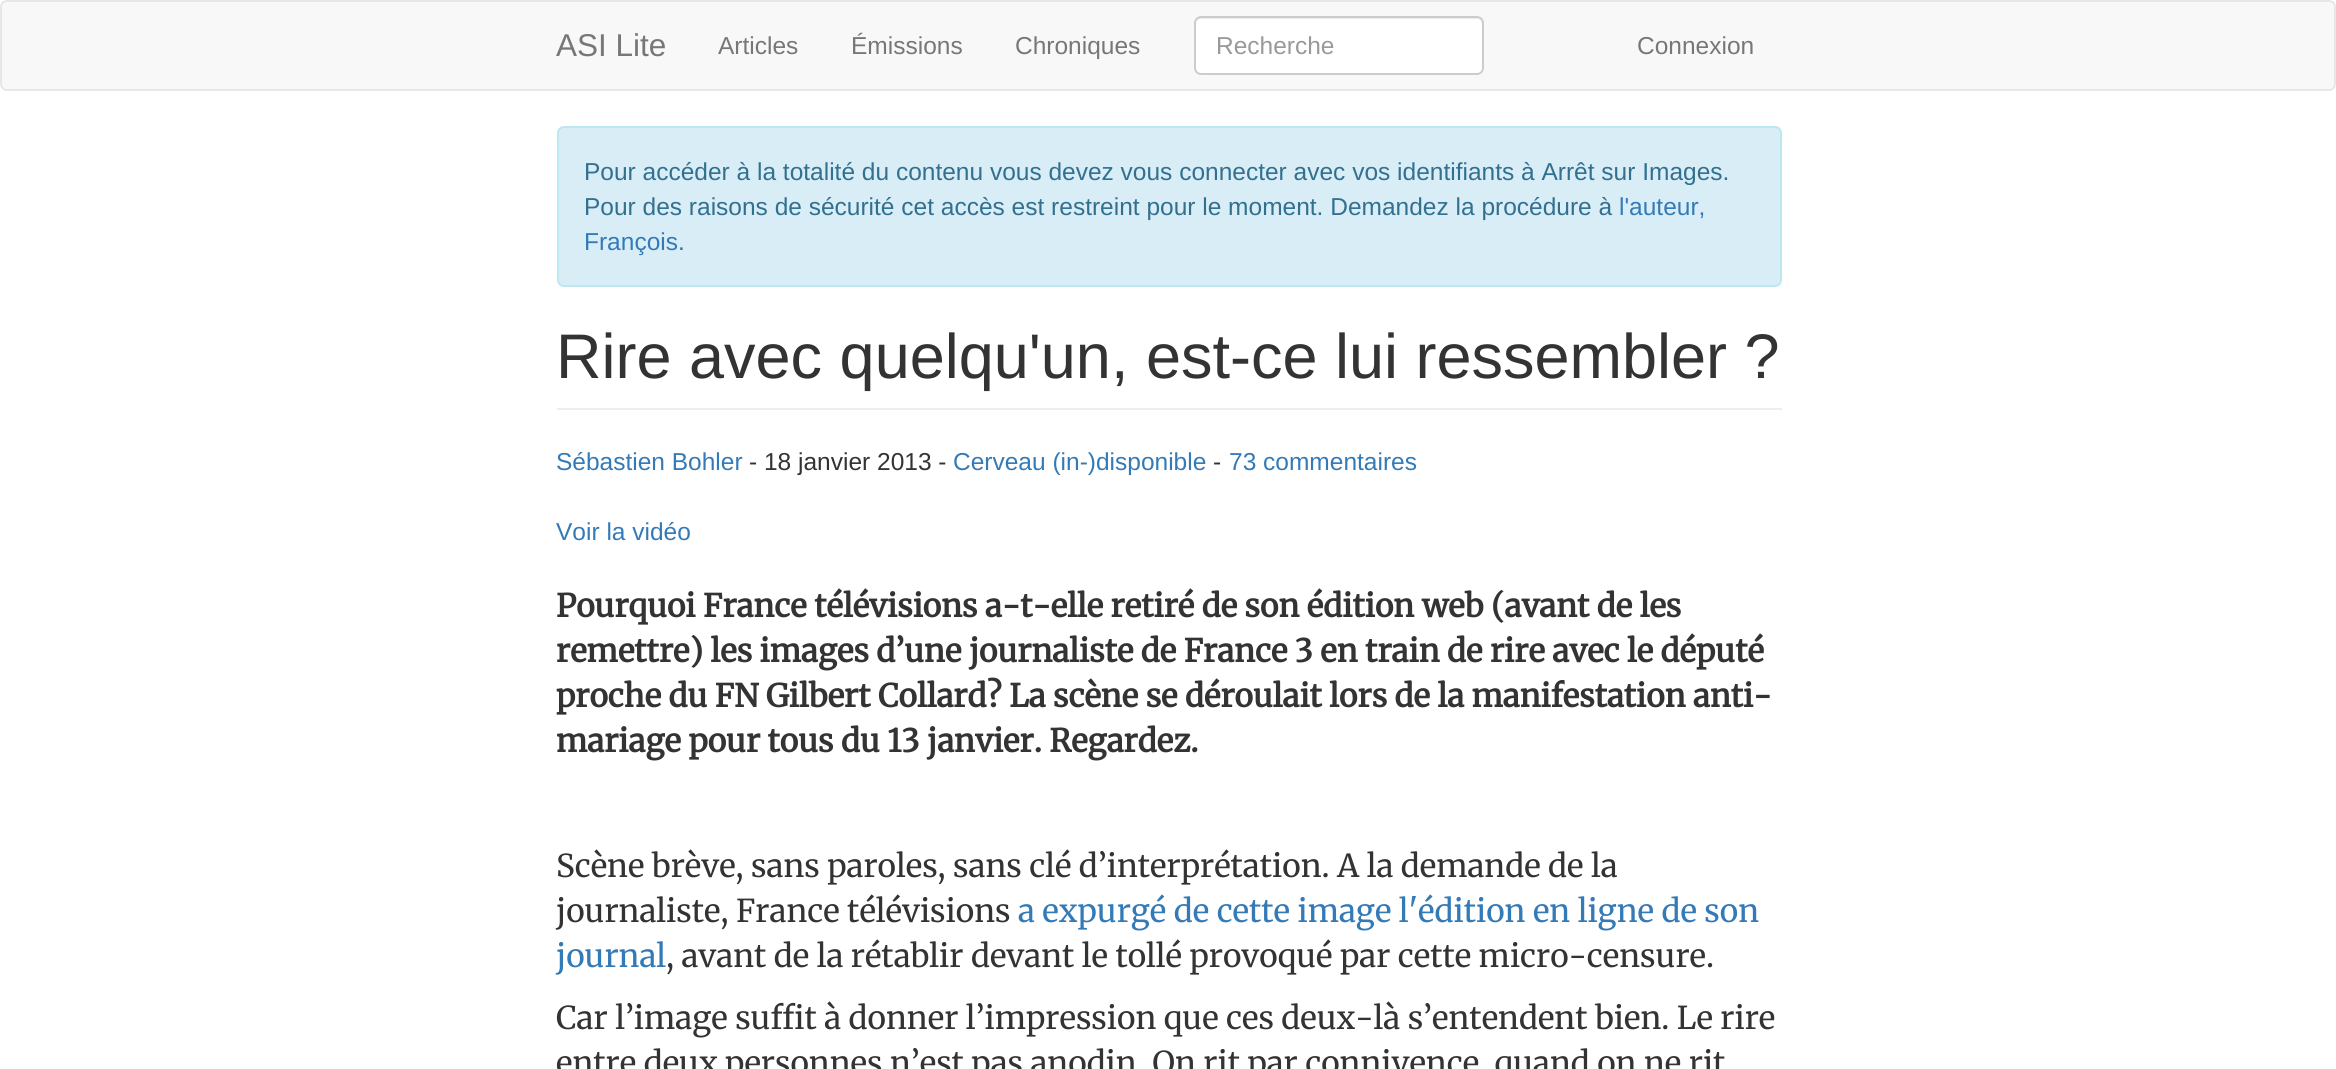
#include <cairo.h>
#include <math.h>
#include <stddef.h>

typedef struct { double x, y; const char *s; } line_t;

static void ink(cairo_t *ctx, unsigned color) {
    cairo_set_source_rgb(ctx, (color >> 16) / 255.0, (color >> 8 & 255) / 255.0, (color & 255) / 255.0);
}

static void round_path(cairo_t *ctx, double x, double y, double w, double h, double r) {
    cairo_new_sub_path(ctx);
    cairo_arc(ctx, x + w - r, y + h - r, r, 0, M_PI / 2);
    cairo_arc(ctx, x + r, y + h - r, r, M_PI / 2, M_PI);
    cairo_arc(ctx, x + r, y + r, r, M_PI, 1.5 * M_PI);
    cairo_arc(ctx, x + w - r, y + r, r, 1.5 * M_PI, 2 * M_PI);
    cairo_close_path(ctx);
}

int main(void) {
    cairo_surface_t *surface = cairo_image_surface_create(CAIRO_FORMAT_RGB24, 2336, 1069);
    cairo_t *ctx = cairo_create(surface);
    cairo_font_options_t *options = cairo_font_options_create();
    cairo_font_options_set_hint_metrics(options, CAIRO_HINT_METRICS_OFF);
    cairo_font_options_set_hint_style(options, CAIRO_HINT_STYLE_NONE);
    cairo_set_font_options(ctx, options);
    cairo_set_miter_limit(ctx, 4);
    ink(ctx, 0xFFFFFF);
    cairo_paint(ctx);
    ink(ctx, 0xF8F8F8);
    round_path(ctx, 1, 1, 2334, 89, 6);
    cairo_fill_preserve(ctx);
    ink(ctx, 0xE7E7E7);
    cairo_stroke(ctx);
    cairo_select_font_face(ctx, "Liberation Sans", CAIRO_FONT_SLANT_NORMAL, CAIRO_FONT_WEIGHT_NORMAL);
    cairo_set_font_size(ctx, 31.5);
    ink(ctx, 0x777777);
    cairo_move_to(ctx, 556, 56);
    cairo_show_text(ctx, "ASI Lite");
    cairo_set_font_size(ctx, 24.5);
    {
        static const line_t items[] = {
            {718, 54, "Articles"},
            {851, 54, "Émissions"},
            {1015, 54, "Chroniques"},
        };
        for (size_t i = 0; i < sizeof items / sizeof *items; i++) {
            cairo_move_to(ctx, items[i].x, items[i].y);
            cairo_show_text(ctx, items[i].s);
        }
    }
    ink(ctx, 0xFFFFFF);
    round_path(ctx, 1194, 16, 290, 59, 7);
    cairo_fill(ctx);
    ink(ctx, 0xECECEC);
    cairo_new_path(ctx);
    cairo_move_to(ctx, 1200, 19);
    cairo_line_to(ctx, 1477, 19);
    cairo_curve_to(ctx, 1480, 19, 1482, 22, 1482, 24);
    cairo_line_to(ctx, 1482, 23);
    cairo_curve_to(ctx, 1482, 20, 1480, 18, 1477, 18);
    cairo_line_to(ctx, 1200, 18);
    cairo_curve_to(ctx, 1197, 18, 1195, 20, 1195, 23);
    cairo_line_to(ctx, 1195, 24);
    cairo_curve_to(ctx, 1195, 22, 1198, 19, 1200, 19);
    cairo_close_path(ctx);
    cairo_fill(ctx);
    round_path(ctx, 1195, 17, 288, 57, 6);
    ink(ctx, 0xCCCCCC);
    cairo_stroke(ctx);
    ink(ctx, 0x999999);
    cairo_move_to(ctx, 1216, 54);
    cairo_show_text(ctx, "Recherche");
    ink(ctx, 0x777777);
    cairo_move_to(ctx, 1637, 54);
    cairo_show_text(ctx, "Connexion");
    ink(ctx, 0xD9EDF7);
    round_path(ctx, 558, 127, 1223, 159, 6);
    cairo_fill_preserve(ctx);
    ink(ctx, 0xBCE8F1);
    cairo_stroke(ctx);
    ink(ctx, 0x31708F);
    cairo_move_to(ctx, 584, 180);
    cairo_show_text(ctx, "Pour accéder à la totalité du contenu vous devez vous connecter avec vos identifiants à Arrêt sur Images.");
    cairo_move_to(ctx, 584, 215);
    cairo_show_text(ctx, "Pour des raisons de sécurité cet accès est restreint pour le moment. Demandez la procédure à");
    ink(ctx, 0x337AB7);
    cairo_move_to(ctx, 1619, 215);
    cairo_show_text(ctx, "l'auteur,");
    cairo_move_to(ctx, 584, 250);
    cairo_show_text(ctx, "François");
    ink(ctx, 0x31708F);
    cairo_move_to(ctx, 678, 250);
    cairo_show_text(ctx, ".");
    ink(ctx, 0xEEEEEE);
    cairo_rectangle(ctx, 557, 408, 1225, 2);
    cairo_fill(ctx);
    cairo_set_font_size(ctx, 63);
    ink(ctx, 0x333333);
    cairo_move_to(ctx, 556, 378);
    cairo_show_text(ctx, "Rire avec quelqu'un, est-ce lui ressembler ?");
    cairo_set_font_size(ctx, 24.5);
    ink(ctx, 0x337AB7);
    cairo_move_to(ctx, 556, 470);
    cairo_show_text(ctx, "Sébastien Bohler");
    ink(ctx, 0x333333);
    cairo_move_to(ctx, 749, 470);
    cairo_show_text(ctx, "- 18 janvier 2013 -");
    ink(ctx, 0x337AB7);
    cairo_move_to(ctx, 953, 470);
    cairo_show_text(ctx, "Cerveau (in-)disponible");
    ink(ctx, 0x333333);
    cairo_move_to(ctx, 1213, 470);
    cairo_show_text(ctx, "-");
    ink(ctx, 0x337AB7);
    cairo_move_to(ctx, 1229, 470);
    cairo_show_text(ctx, "73 commentaires");
    cairo_move_to(ctx, 556, 540);
    cairo_show_text(ctx, "Voir la vidéo");
    cairo_select_font_face(ctx, "Merriweather", CAIRO_FONT_SLANT_NORMAL, CAIRO_FONT_WEIGHT_BOLD);
    cairo_set_font_size(ctx, 31.5);
    ink(ctx, 0x333333);
    {
        static const line_t items[] = {
            {556, 617, "Pourquoi France télévisions a-t-elle retiré de son édition web (avant de les"},
            {556, 662, "remettre) les images d’une journaliste de France 3 en train de rire avec le député"},
            {556, 707, "proche du FN Gilbert Collard? La scène se déroulait lors de la manifestation anti-"},
            {556, 752, "mariage pour tous du 13 janvier. Regardez."},
        };
        for (size_t i = 0; i < sizeof items / sizeof *items; i++) {
            cairo_move_to(ctx, items[i].x, items[i].y);
            cairo_show_text(ctx, items[i].s);
        }
    }
    cairo_select_font_face(ctx, "Merriweather Light", CAIRO_FONT_SLANT_NORMAL, CAIRO_FONT_WEIGHT_NORMAL);
    cairo_move_to(ctx, 556, 877);
    cairo_show_text(ctx, "Scène brève, sans paroles, sans clé d’interprétation. A la demande de la");
    cairo_move_to(ctx, 556, 922);
    cairo_show_text(ctx, "journaliste, France télévisions");
    ink(ctx, 0x337AB7);
    cairo_move_to(ctx, 1018, 922);
    cairo_show_text(ctx, "a expurgé de cette image l'édition en ligne de son");
    cairo_move_to(ctx, 556, 967);
    cairo_show_text(ctx, "journal");
    ink(ctx, 0x333333);
    {
        static const line_t items[] = {
            {666, 967, ", avant de la rétablir devant le tollé provoqué par cette micro-censure."},
            {556, 1029, "Car l’image suffit à donner l’impression que ces deux-là s’entendent bien. Le rire"},
            {556, 1074, "entre deux personnes n’est pas anodin. On rit par connivence, quand on ne rit"},
        };
        for (size_t i = 0; i < sizeof items / sizeof *items; i++) {
            cairo_move_to(ctx, items[i].x, items[i].y);
            cairo_show_text(ctx, items[i].s);
        }
    }
    cairo_surface_write_to_png(surface, "image.png");
    cairo_font_options_destroy(options);
    cairo_destroy(ctx);
    cairo_surface_destroy(surface);
    return 0;
}
